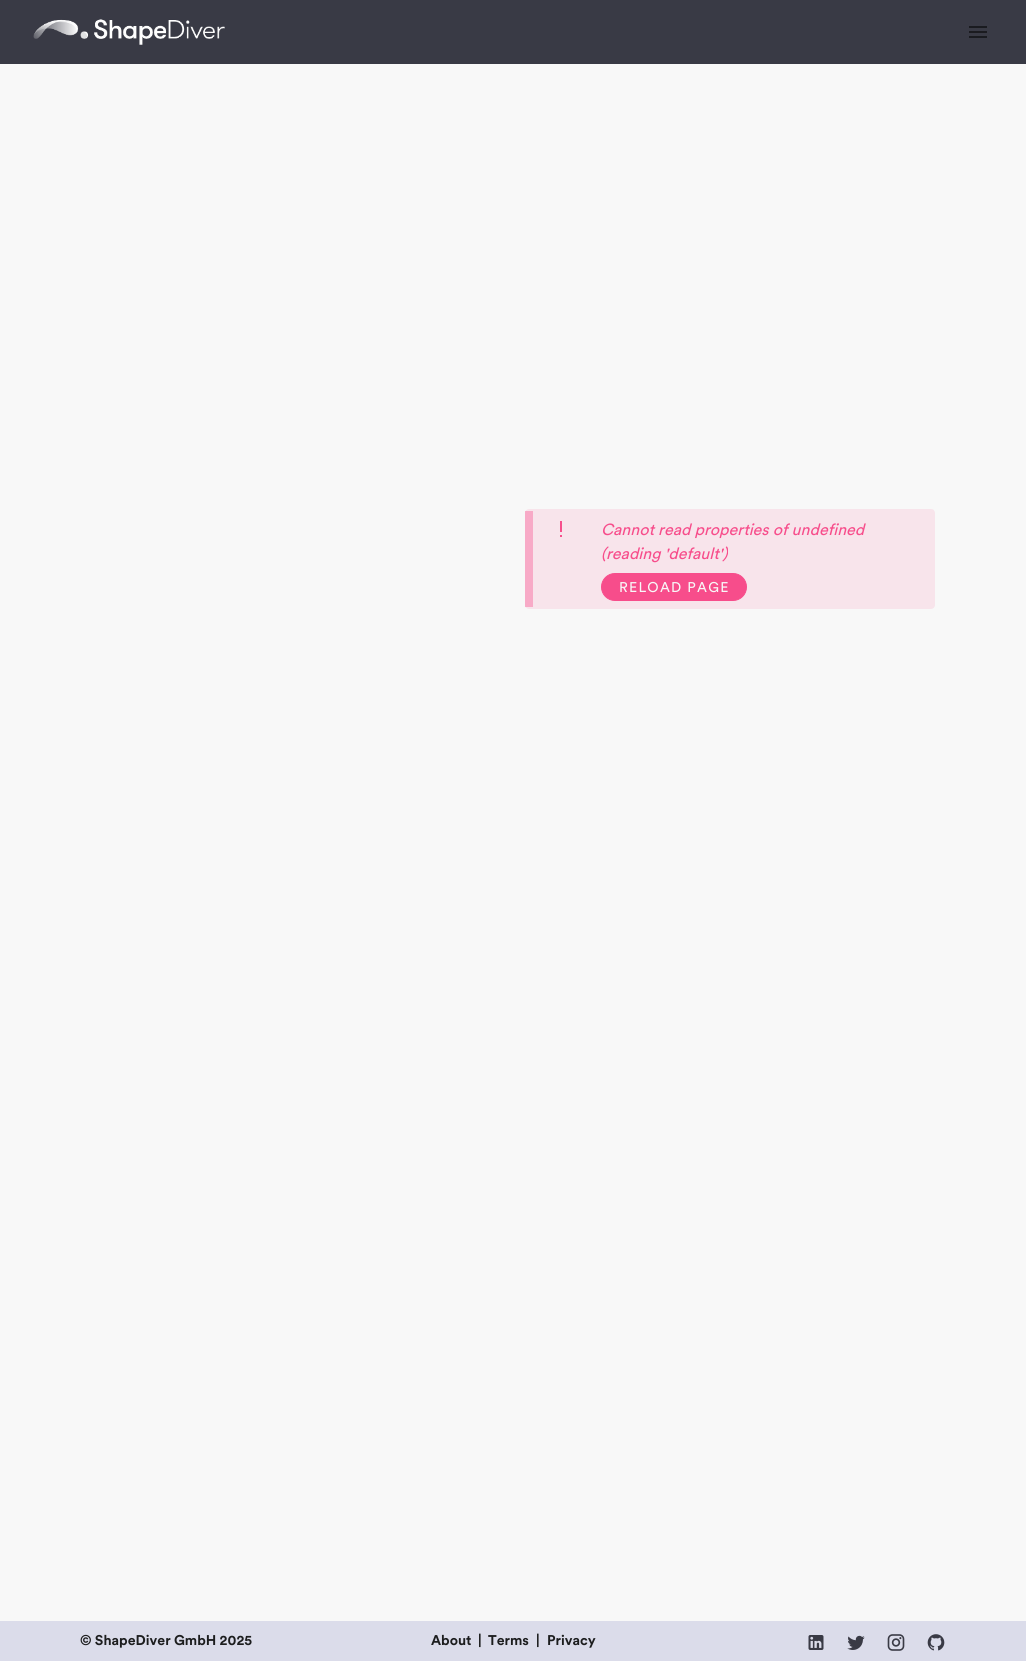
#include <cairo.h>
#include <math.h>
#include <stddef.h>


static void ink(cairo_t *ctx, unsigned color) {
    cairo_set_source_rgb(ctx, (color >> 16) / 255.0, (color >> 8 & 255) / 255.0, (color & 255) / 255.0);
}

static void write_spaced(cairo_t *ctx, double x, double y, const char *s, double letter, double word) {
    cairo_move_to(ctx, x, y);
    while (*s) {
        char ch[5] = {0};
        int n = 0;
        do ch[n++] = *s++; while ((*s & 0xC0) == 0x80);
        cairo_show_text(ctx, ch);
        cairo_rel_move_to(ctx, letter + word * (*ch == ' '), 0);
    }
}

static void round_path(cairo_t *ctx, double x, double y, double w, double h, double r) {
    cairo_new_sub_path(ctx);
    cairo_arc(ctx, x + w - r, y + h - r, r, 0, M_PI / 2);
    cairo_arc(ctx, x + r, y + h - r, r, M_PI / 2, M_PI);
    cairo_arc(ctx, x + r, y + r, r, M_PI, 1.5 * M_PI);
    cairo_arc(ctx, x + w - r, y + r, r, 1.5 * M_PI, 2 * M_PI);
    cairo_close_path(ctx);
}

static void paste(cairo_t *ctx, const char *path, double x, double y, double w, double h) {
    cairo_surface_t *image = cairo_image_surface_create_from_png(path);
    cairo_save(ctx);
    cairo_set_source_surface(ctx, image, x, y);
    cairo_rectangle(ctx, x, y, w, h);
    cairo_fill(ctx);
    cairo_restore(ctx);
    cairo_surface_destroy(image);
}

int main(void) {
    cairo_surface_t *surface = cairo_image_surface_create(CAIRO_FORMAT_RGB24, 1026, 1661);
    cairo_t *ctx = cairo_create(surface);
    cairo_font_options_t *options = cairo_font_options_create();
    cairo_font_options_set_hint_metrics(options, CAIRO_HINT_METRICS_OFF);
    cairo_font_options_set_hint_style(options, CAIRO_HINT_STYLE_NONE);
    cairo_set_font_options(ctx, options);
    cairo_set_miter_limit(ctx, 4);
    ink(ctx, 0xF8F8F8);
    cairo_paint(ctx);
    ink(ctx, 0x393A45);
    cairo_rectangle(ctx, 0, 0, 1026, 64);
    cairo_fill(ctx);
    paste(ctx, "media/1.png", 33, 19, 192, 26);
    paste(ctx, "media/2.png", 969, 26, 18, 12);
    cairo_set_source_rgba(ctx, 0.969, 0.302, 0.545, 0.12);
    round_path(ctx, 525, 509, 410, 100, 4);
    cairo_fill(ctx);
    cairo_set_source_rgba(ctx, 0.969, 0.302, 0.545, 0.38);
    cairo_rectangle(ctx, 525, 511, 8, 96);
    cairo_fill(ctx);
    paste(ctx, "media/3.png", 560, 521, 2, 16);
    cairo_select_font_face(ctx, "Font", CAIRO_FONT_SLANT_ITALIC, CAIRO_FONT_WEIGHT_NORMAL);
    cairo_set_font_size(ctx, 16);
    ink(ctx, 0xF74D8B);
    cairo_move_to(ctx, 601, 535);
    cairo_show_text(ctx, "Cannot read properties of undefined");
    cairo_move_to(ctx, 601, 559);
    cairo_show_text(ctx, "(reading 'default')");
    round_path(ctx, 601.5, 573.5, 145, 27, 13.5);
    cairo_fill_preserve(ctx);
    cairo_set_line_width(ctx, 1);
    cairo_stroke(ctx);
    cairo_select_font_face(ctx, "Font", CAIRO_FONT_SLANT_NORMAL, CAIRO_FONT_WEIGHT_NORMAL);
    cairo_set_font_size(ctx, 14);
    ink(ctx, 0xF8F8F8);
    write_spaced(ctx, 619, 592, "RELOAD PAGE", 1.25, 0);
    ink(ctx, 0xDBDCEA);
    cairo_rectangle(ctx, 0, 1621, 1026, 40);
    cairo_fill(ctx);
    cairo_select_font_face(ctx, "Font", CAIRO_FONT_SLANT_NORMAL, CAIRO_FONT_WEIGHT_BOLD);
    ink(ctx, 0x1C1D1E);
    cairo_move_to(ctx, 80, 1645);
    cairo_show_text(ctx, "© ShapeDiver GmbH 2025");
    cairo_move_to(ctx, 431, 1645);
    cairo_show_text(ctx, "About");
    cairo_select_font_face(ctx, "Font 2", CAIRO_FONT_SLANT_NORMAL, CAIRO_FONT_WEIGHT_BOLD);
    cairo_move_to(ctx, 478, 1645);
    cairo_show_text(ctx, "|");
    cairo_select_font_face(ctx, "Font", CAIRO_FONT_SLANT_NORMAL, CAIRO_FONT_WEIGHT_BOLD);
    cairo_move_to(ctx, 488, 1645);
    cairo_show_text(ctx, "Terms");
    cairo_select_font_face(ctx, "Font 2", CAIRO_FONT_SLANT_NORMAL, CAIRO_FONT_WEIGHT_BOLD);
    cairo_move_to(ctx, 536, 1645);
    cairo_show_text(ctx, "|");
    cairo_select_font_face(ctx, "Font", CAIRO_FONT_SLANT_NORMAL, CAIRO_FONT_WEIGHT_BOLD);
    cairo_move_to(ctx, 547, 1645);
    cairo_show_text(ctx, "Privacy");
    paste(ctx, "media/4.png", 808, 1635, 16, 15);
    paste(ctx, "media/5.png", 847, 1635, 18, 15);
    paste(ctx, "media/6.png", 887, 1634, 18, 17);
    paste(ctx, "media/7.png", 927, 1634, 18, 17);
    cairo_surface_write_to_png(surface, "image.png");
    cairo_font_options_destroy(options);
    cairo_destroy(ctx);
    cairo_surface_destroy(surface);
    return 0;
}
